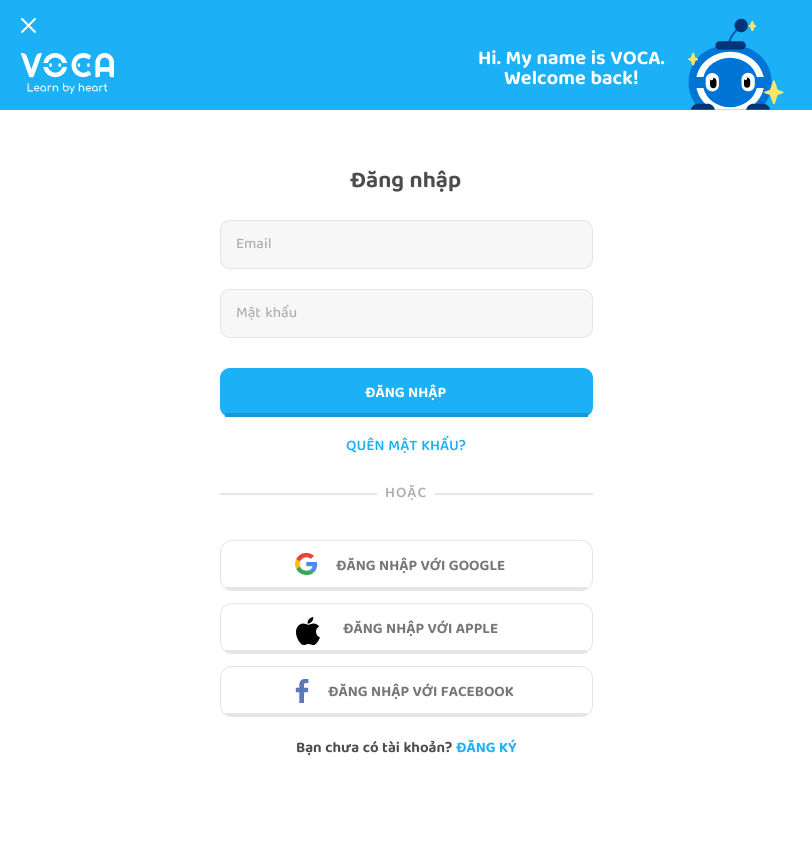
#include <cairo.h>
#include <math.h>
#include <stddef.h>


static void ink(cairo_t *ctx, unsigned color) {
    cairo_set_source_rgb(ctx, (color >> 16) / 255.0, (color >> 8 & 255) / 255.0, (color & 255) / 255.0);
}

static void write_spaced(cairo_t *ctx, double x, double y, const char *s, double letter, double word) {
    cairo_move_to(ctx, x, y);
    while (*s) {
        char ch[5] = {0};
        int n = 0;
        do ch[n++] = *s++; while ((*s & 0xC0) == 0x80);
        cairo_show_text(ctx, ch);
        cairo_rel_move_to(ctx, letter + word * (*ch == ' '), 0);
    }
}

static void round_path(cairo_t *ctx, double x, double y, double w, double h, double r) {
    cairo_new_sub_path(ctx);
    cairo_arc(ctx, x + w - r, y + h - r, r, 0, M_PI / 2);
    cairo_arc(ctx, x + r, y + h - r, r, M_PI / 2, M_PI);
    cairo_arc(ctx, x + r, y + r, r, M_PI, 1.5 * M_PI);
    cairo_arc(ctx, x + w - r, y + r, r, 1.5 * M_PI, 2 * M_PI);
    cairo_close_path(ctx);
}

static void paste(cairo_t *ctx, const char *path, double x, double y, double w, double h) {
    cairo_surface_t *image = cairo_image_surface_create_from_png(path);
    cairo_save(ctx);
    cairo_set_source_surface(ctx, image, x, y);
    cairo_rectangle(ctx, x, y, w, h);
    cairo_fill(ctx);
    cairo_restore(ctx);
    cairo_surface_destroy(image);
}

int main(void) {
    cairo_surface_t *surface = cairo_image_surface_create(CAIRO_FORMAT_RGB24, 812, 866);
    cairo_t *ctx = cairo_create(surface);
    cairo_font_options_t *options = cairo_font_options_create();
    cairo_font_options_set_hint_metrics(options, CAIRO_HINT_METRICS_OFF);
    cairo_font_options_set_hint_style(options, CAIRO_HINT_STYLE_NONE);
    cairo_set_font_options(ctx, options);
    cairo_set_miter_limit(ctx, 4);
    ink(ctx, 0xFFFFFF);
    cairo_paint(ctx);
    ink(ctx, 0x1CB0F6);
    cairo_rectangle(ctx, 0, 0, 812, 110);
    cairo_fill(ctx);
    cairo_new_path(ctx);
    cairo_move_to(ctx, 22, 19);
    cairo_line_to(ctx, 35, 32);
    cairo_move_to(ctx, 22, 32);
    cairo_line_to(ctx, 35, 19);
    ink(ctx, 0xFFFFFF);
    cairo_set_line_cap(ctx, CAIRO_LINE_CAP_ROUND);
    cairo_stroke(ctx);
    paste(ctx, "media/1.png", 21, 53, 93, 41);
    cairo_select_font_face(ctx, "Baloo Tamma 2", CAIRO_FONT_SLANT_NORMAL, CAIRO_FONT_WEIGHT_BOLD);
    cairo_set_font_size(ctx, 20);
    cairo_move_to(ctx, 478, 64);
    cairo_show_text(ctx, "Hi. My name is VOCA.");
    cairo_move_to(ctx, 504, 84);
    cairo_show_text(ctx, "Welcome back!");
    paste(ctx, "media/2.png", 688, 18, 96, 92);
    cairo_set_font_size(ctx, 23);
    ink(ctx, 0x4C4C4C);
    cairo_move_to(ctx, 350, 187);
    cairo_show_text(ctx, "Đăng nhập");
    ink(ctx, 0xF7F7F7);
    round_path(ctx, 220.5, 220.5, 372, 48, 9.5);
    cairo_fill_preserve(ctx);
    ink(ctx, 0xE5E5E5);
    cairo_set_line_width(ctx, 1);
    cairo_set_line_cap(ctx, CAIRO_LINE_CAP_BUTT);
    cairo_stroke(ctx);
    cairo_select_font_face(ctx, "Baloo Tamma 2 Medium", CAIRO_FONT_SLANT_NORMAL, CAIRO_FONT_WEIGHT_NORMAL);
    cairo_set_font_size(ctx, 15);
    ink(ctx, 0xAFAFAF);
    cairo_move_to(ctx, 236, 248);
    cairo_show_text(ctx, "Email");
    ink(ctx, 0xF7F7F7);
    round_path(ctx, 220.5, 289.5, 372, 48, 9.5);
    cairo_fill_preserve(ctx);
    ink(ctx, 0xE5E5E5);
    cairo_stroke(ctx);
    ink(ctx, 0xAFAFAF);
    cairo_move_to(ctx, 236, 317);
    cairo_show_text(ctx, "Mật khẩu");
    ink(ctx, 0x1CB0F6);
    round_path(ctx, 220, 368, 373, 49, 10);
    cairo_fill(ctx);
    ink(ctx, 0x1899D6);
    cairo_rectangle(ctx, 225, 413, 363, 4);
    cairo_fill(ctx);
    cairo_select_font_face(ctx, "Baloo Tamma 2", CAIRO_FONT_SLANT_NORMAL, CAIRO_FONT_WEIGHT_BOLD);
    ink(ctx, 0xFFFFFF);
    cairo_move_to(ctx, 365, 397);
    cairo_show_text(ctx, "ĐĂNG NHẬP");
    cairo_select_font_face(ctx, "Baloo Tamma 2 SemiBold", CAIRO_FONT_SLANT_NORMAL, CAIRO_FONT_WEIGHT_NORMAL);
    ink(ctx, 0x1CB0F6);
    cairo_move_to(ctx, 346, 450);
    cairo_show_text(ctx, "QUÊN MẬT KHẨU?");
    ink(ctx, 0xE5E5E5);
    cairo_rectangle(ctx, 220, 493, 157, 2);
    cairo_fill(ctx);
    ink(ctx, 0xAFAFAF);
    write_spaced(ctx, 385, 497, "HOẶC", 1, 0);
    ink(ctx, 0xE5E5E5);
    cairo_rectangle(ctx, 435, 493, 158, 2);
    cairo_fill(ctx);
    round_path(ctx, 220.5, 540.5, 372, 50, 11.5);
    cairo_stroke(ctx);
    cairo_rectangle(ctx, 226, 587, 361, 3);
    cairo_fill(ctx);
    paste(ctx, "media/3.png", 295, 553, 22, 22);
    cairo_select_font_face(ctx, "Baloo Tamma 2", CAIRO_FONT_SLANT_NORMAL, CAIRO_FONT_WEIGHT_BOLD);
    ink(ctx, 0x777777);
    cairo_move_to(ctx, 336, 570);
    cairo_show_text(ctx, "ĐĂNG NHẬP VỚI GOOGLE");
    round_path(ctx, 220.5, 603.5, 372, 50, 11.5);
    ink(ctx, 0xE5E5E5);
    cairo_stroke(ctx);
    cairo_rectangle(ctx, 226, 650, 361, 3);
    cairo_fill(ctx);
    paste(ctx, "media/4.png", 296, 617, 24, 28);
    ink(ctx, 0x777777);
    cairo_move_to(ctx, 343, 633);
    cairo_show_text(ctx, "ĐĂNG NHẬP VỚI APPLE");
    round_path(ctx, 220.5, 666.5, 372, 50, 11.5);
    ink(ctx, 0xE5E5E5);
    cairo_stroke(ctx);
    cairo_rectangle(ctx, 226, 713, 361, 3);
    cairo_fill(ctx);
    paste(ctx, "media/5.png", 295, 679, 14, 24);
    ink(ctx, 0x777777);
    cairo_move_to(ctx, 328, 696);
    cairo_show_text(ctx, "ĐĂNG NHẬP VỚI FACEBOOK");
    ink(ctx, 0x4C4C4C);
    cairo_move_to(ctx, 296, 752);
    cairo_show_text(ctx, "Bạn chưa có tài khoản?");
    ink(ctx, 0x1CB0F6);
    cairo_move_to(ctx, 456, 752);
    cairo_show_text(ctx, "ĐĂNG KÝ");
    cairo_surface_write_to_png(surface, "image.png");
    cairo_font_options_destroy(options);
    cairo_destroy(ctx);
    cairo_surface_destroy(surface);
    return 0;
}
